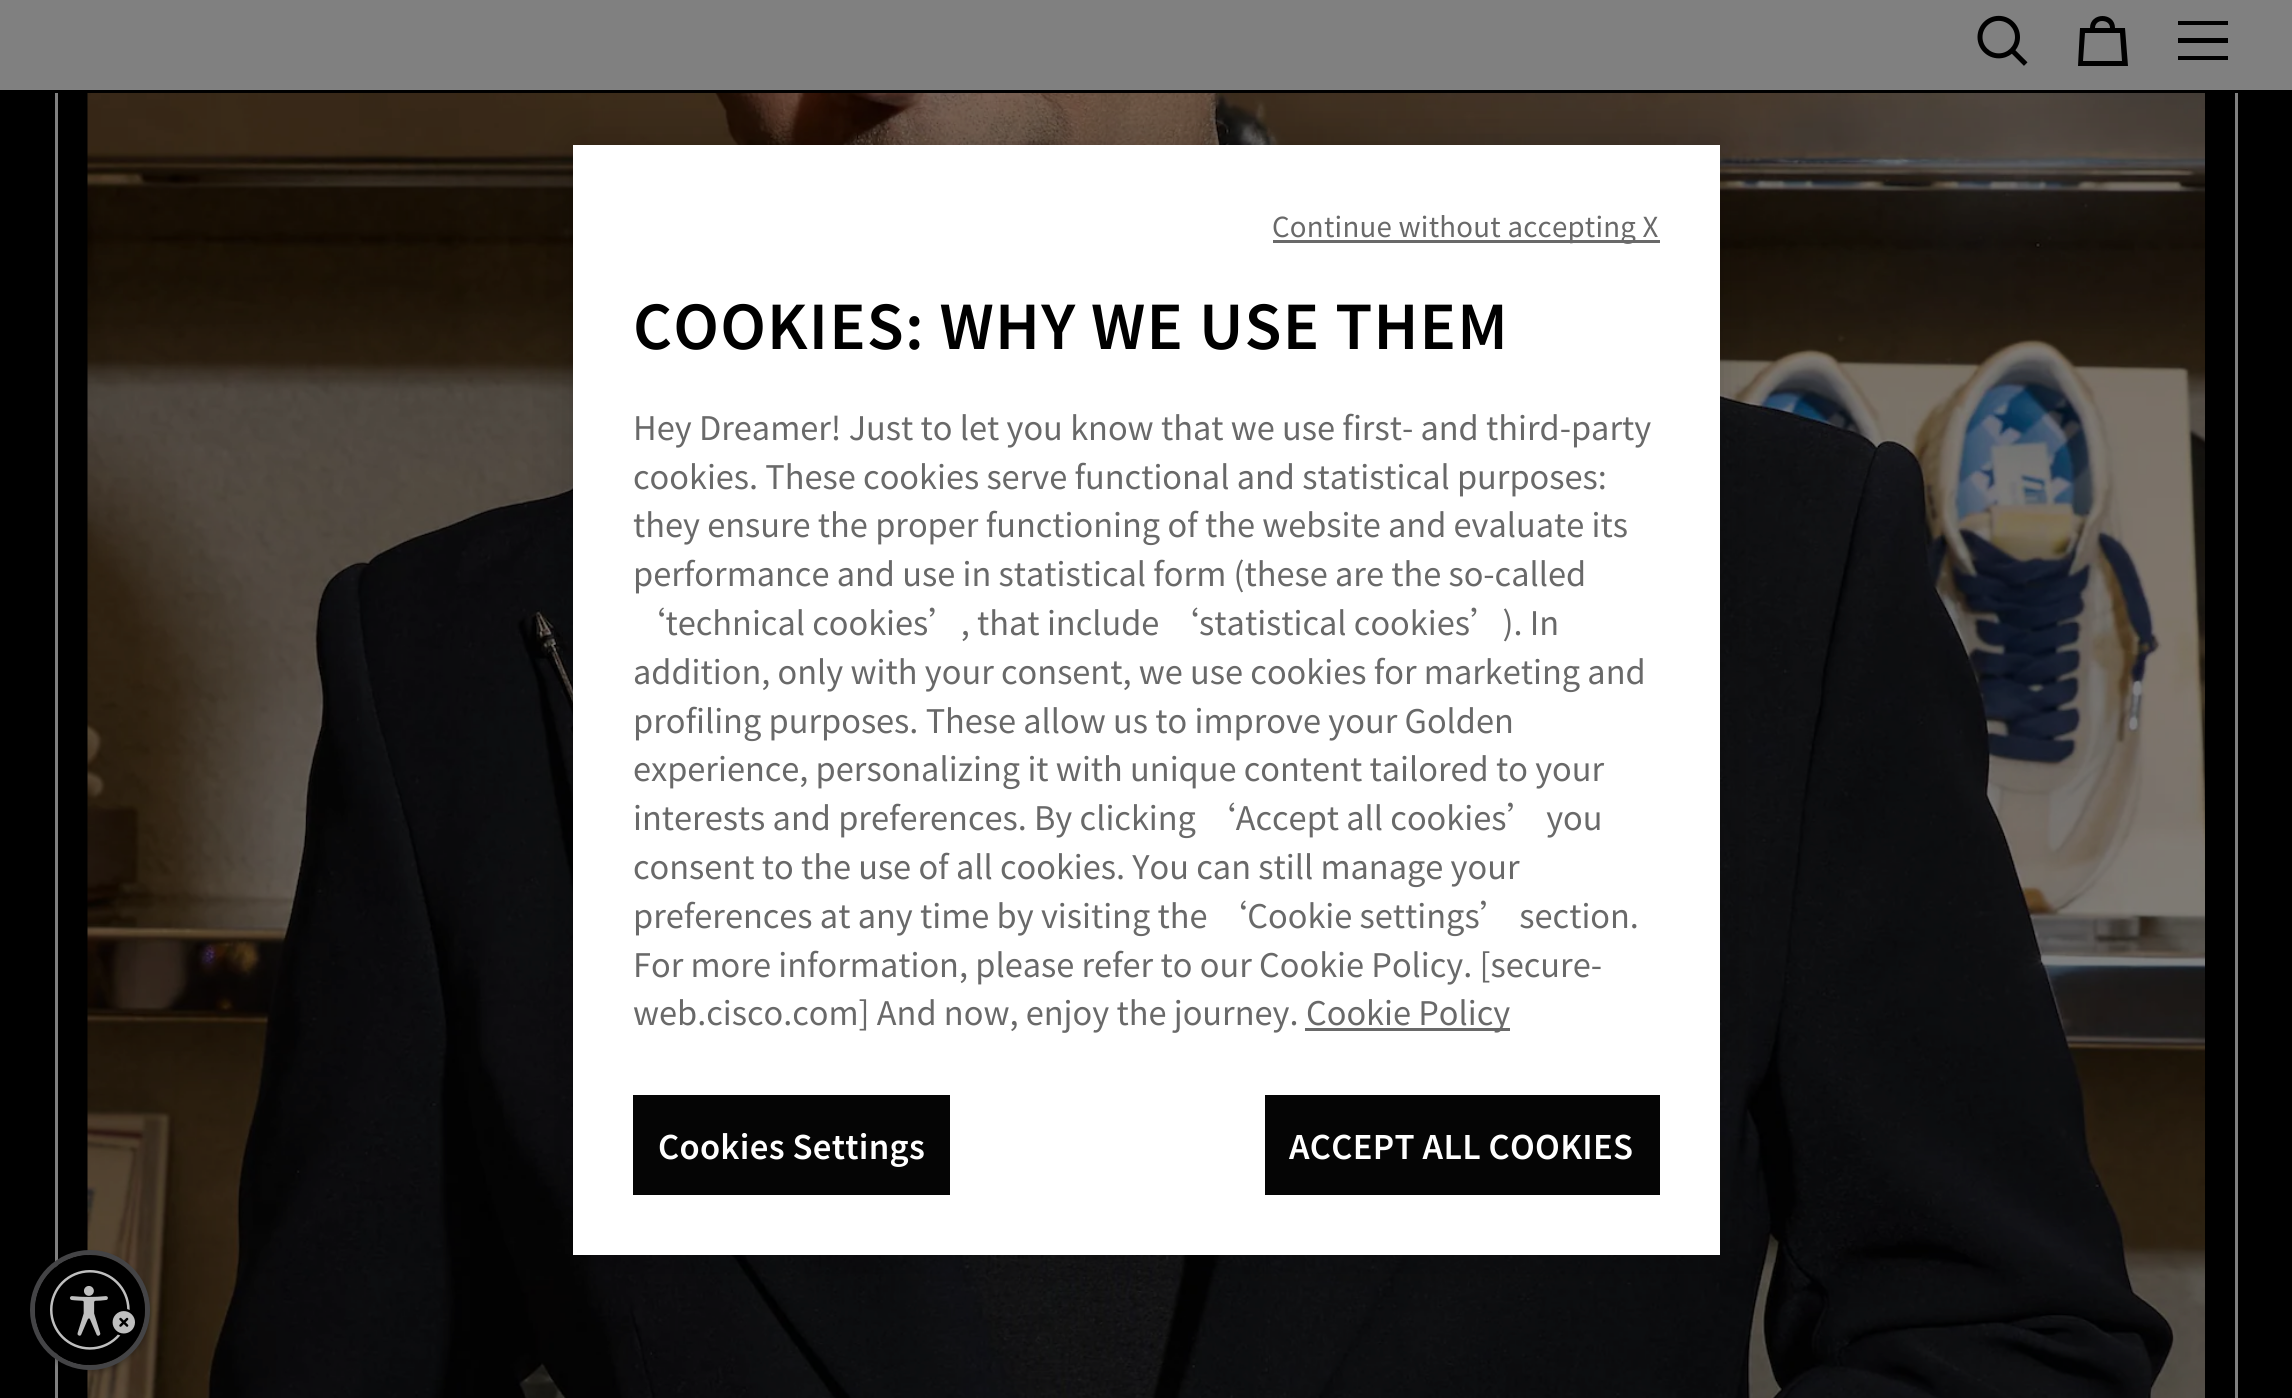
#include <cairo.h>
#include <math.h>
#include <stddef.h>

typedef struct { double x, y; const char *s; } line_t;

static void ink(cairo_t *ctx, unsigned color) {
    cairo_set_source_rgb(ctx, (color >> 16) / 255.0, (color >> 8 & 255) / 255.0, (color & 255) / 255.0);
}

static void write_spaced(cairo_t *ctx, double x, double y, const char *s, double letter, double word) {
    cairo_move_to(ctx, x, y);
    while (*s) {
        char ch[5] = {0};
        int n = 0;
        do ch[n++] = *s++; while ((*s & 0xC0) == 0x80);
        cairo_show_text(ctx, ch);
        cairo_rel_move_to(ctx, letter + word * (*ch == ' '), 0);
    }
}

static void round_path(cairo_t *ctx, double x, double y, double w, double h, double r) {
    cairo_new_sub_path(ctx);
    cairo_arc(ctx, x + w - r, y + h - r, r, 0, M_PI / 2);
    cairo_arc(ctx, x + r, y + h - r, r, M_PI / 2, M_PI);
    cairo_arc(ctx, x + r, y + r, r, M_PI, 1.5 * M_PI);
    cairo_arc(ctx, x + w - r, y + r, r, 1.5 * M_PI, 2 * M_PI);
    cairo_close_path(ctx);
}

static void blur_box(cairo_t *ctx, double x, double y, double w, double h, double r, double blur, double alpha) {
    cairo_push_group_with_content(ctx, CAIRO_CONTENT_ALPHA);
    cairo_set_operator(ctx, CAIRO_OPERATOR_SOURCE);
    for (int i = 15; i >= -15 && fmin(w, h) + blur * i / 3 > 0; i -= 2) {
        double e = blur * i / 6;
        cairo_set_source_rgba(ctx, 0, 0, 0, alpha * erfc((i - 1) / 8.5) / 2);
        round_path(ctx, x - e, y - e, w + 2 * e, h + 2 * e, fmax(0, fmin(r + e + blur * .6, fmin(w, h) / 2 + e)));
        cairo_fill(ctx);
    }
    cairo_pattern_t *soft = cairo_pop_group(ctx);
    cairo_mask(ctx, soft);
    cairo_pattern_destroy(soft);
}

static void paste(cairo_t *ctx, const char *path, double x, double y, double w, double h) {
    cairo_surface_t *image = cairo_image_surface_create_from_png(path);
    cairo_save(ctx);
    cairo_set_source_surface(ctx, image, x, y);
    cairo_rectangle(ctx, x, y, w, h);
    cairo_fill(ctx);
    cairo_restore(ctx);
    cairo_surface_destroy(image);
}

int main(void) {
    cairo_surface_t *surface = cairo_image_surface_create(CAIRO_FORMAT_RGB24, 2292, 1398);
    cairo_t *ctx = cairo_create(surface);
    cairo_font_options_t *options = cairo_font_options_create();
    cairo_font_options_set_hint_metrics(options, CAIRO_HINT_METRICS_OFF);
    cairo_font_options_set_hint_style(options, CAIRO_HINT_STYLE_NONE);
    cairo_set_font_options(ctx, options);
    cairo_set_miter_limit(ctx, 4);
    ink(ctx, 0x000000);
    cairo_paint(ctx);
    cairo_rectangle(ctx, 56.5, -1.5, 2180, 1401);
    ink(ctx, 0x808080);
    cairo_set_line_width(ctx, 3);
    cairo_stroke(ctx);
    paste(ctx, "media/1.png", 87, 93, 2118, 1305);
    cairo_rectangle(ctx, 0, 0, 2292, 90);
    cairo_fill(ctx);
    ink(ctx, 0x000000);
    cairo_rectangle(ctx, 55, 90, 2183, 3);
    cairo_fill(ctx);
    paste(ctx, "media/2.png", 1977, 15, 51, 51);
    cairo_new_path(ctx);
    cairo_move_to(ctx, 2125, 28);
    cairo_line_to(ctx, 2115, 28);
    cairo_curve_to(ctx, 2115, 12, 2090, 12, 2090, 28);
    cairo_line_to(ctx, 2080, 28);
    cairo_line_to(ctx, 2078, 66);
    cairo_line_to(ctx, 2128, 66);
    cairo_close_path(ctx);
    cairo_move_to(ctx, 2102, 21);
    cairo_curve_to(ctx, 2107, 21, 2110, 24, 2110, 28);
    cairo_line_to(ctx, 2095, 28);
    cairo_curve_to(ctx, 2095, 24, 2098, 21, 2102, 21);
    cairo_close_path(ctx);
    cairo_move_to(ctx, 2083, 61);
    cairo_line_to(ctx, 2085, 33);
    cairo_line_to(ctx, 2120, 33);
    cairo_line_to(ctx, 2122, 61);
    cairo_close_path(ctx);
    cairo_fill(ctx);
    cairo_set_fill_rule(ctx, CAIRO_FILL_RULE_EVEN_ODD);
    cairo_new_path(ctx);
    cairo_move_to(ctx, 2228, 25);
    cairo_line_to(ctx, 2178, 25);
    cairo_line_to(ctx, 2178, 21);
    cairo_line_to(ctx, 2228, 21);
    cairo_close_path(ctx);
    cairo_move_to(ctx, 2178, 43);
    cairo_line_to(ctx, 2228, 43);
    cairo_line_to(ctx, 2228, 38);
    cairo_line_to(ctx, 2178, 38);
    cairo_close_path(ctx);
    cairo_move_to(ctx, 2178, 60);
    cairo_line_to(ctx, 2228, 60);
    cairo_line_to(ctx, 2228, 56);
    cairo_line_to(ctx, 2178, 56);
    cairo_close_path(ctx);
    cairo_fill(ctx);
    ink(ctx, 0x000000);
    blur_box(ctx, 573, 145, 1147, 1110, 0, 22.5, 0.2);
    ink(ctx, 0xFFFFFF);
    cairo_rectangle(ctx, 573, 145, 1147, 1110);
    cairo_fill(ctx);
    ink(ctx, 0x696969);
    cairo_rectangle(ctx, 1273, 240, 387, 3);
    cairo_fill(ctx);
    cairo_select_font_face(ctx, "Noto Sans SC", CAIRO_FONT_SLANT_NORMAL, CAIRO_FONT_WEIGHT_NORMAL);
    cairo_set_font_size(ctx, 27.6);
    write_spaced(ctx, 1272, 237, "Continue without accepting X", 0.25, 0);
    cairo_select_font_face(ctx, "Noto Sans SC SemiBold", CAIRO_FONT_SLANT_NORMAL, CAIRO_FONT_WEIGHT_NORMAL);
    cairo_set_font_size(ctx, 60);
    ink(ctx, 0x000000);
    write_spaced(ctx, 633, 349, "COOKIES: WHY WE USE THEM", 1.2, 0);
    cairo_select_font_face(ctx, "Noto Sans SC", CAIRO_FONT_SLANT_NORMAL, CAIRO_FONT_WEIGHT_NORMAL);
    cairo_set_font_size(ctx, 32.5);
    ink(ctx, 0x696969);
    {
        static const line_t items[] = {
            {633, 440, "Hey Dreamer! Just to let you know that we use first- and third-party"},
            {633, 489, "cookies. These cookies serve functional and statistical purposes:"},
            {633, 537, "they ensure the proper functioning of the website and evaluate its"},
            {633, 586, "performance and use in statistical form (these are the so-called"},
            {633, 635, "‘technical cookies’, that include ‘statistical cookies’). In"},
            {633, 684, "addition, only with your consent, we use cookies for marketing and"},
            {633, 733, "profiling purposes. These allow us to improve your Golden"},
            {633, 781, "experience, personalizing it with unique content tailored to your"},
            {633, 830, "interests and preferences. By clicking ‘Accept all cookies’ you"},
            {633, 879, "consent to the use of all cookies. You can still manage your"},
            {633, 928, "preferences at any time by visiting the ‘Cookie settings’ section."},
            {633, 977, "For more information, please refer to our Cookie Policy. [secure-"},
            {633, 1025, "web.cisco.com] And now, enjoy the journey."},
        };
        for (size_t i = 0; i < sizeof items / sizeof *items; i++) {
            cairo_move_to(ctx, items[i].x, items[i].y);
            cairo_show_text(ctx, items[i].s);
        }
    }
    cairo_rectangle(ctx, 1305, 1028, 205, 3);
    cairo_fill(ctx);
    cairo_move_to(ctx, 1306, 1025);
    cairo_show_text(ctx, "Cookie Policy");
    ink(ctx, 0x050505);
    cairo_rectangle(ctx, 633, 1095, 317, 100);
    cairo_fill(ctx);
    cairo_select_font_face(ctx, "Noto Sans SC SemiBold", CAIRO_FONT_SLANT_NORMAL, CAIRO_FONT_WEIGHT_NORMAL);
    ink(ctx, 0xFFFFFF);
    write_spaced(ctx, 658, 1159, "Cookies Settings", 0.3, 0);
    ink(ctx, 0x050505);
    cairo_rectangle(ctx, 1265, 1095, 395, 100);
    cairo_fill(ctx);
    ink(ctx, 0xFFFFFF);
    write_spaced(ctx, 1289, 1159, "ACCEPT ALL COOKIES", 0.3, 0);
    ink(ctx, 0x000000);
    blur_box(ctx, 30, 1253, 120, 120, 60, 2.5, 0.24);
    cairo_arc(ctx, 90, 1310, 57.5, 0, 2 * M_PI);
    ink(ctx, 0x444446);
    cairo_set_line_width(ctx, 5);
    cairo_stroke(ctx);
    cairo_save(ctx);
    cairo_set_fill_rule(ctx, CAIRO_FILL_RULE_WINDING);
    round_path(ctx, 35, 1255, 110, 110, 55);
    cairo_clip(ctx);
    ink(ctx, 0x000000);
    blur_box(ctx, 35, 1258, 110, 110, 55, 2.5, 0.24);
    cairo_restore(ctx);
    ink(ctx, 0x000000);
    cairo_arc(ctx, 90, 1310, 55, 0, 2 * M_PI);
    cairo_fill(ctx);
    paste(ctx, "media/3.png", 50, 1270, 85, 80);
    cairo_surface_write_to_png(surface, "image.png");
    cairo_font_options_destroy(options);
    cairo_destroy(ctx);
    cairo_surface_destroy(surface);
    return 0;
}
